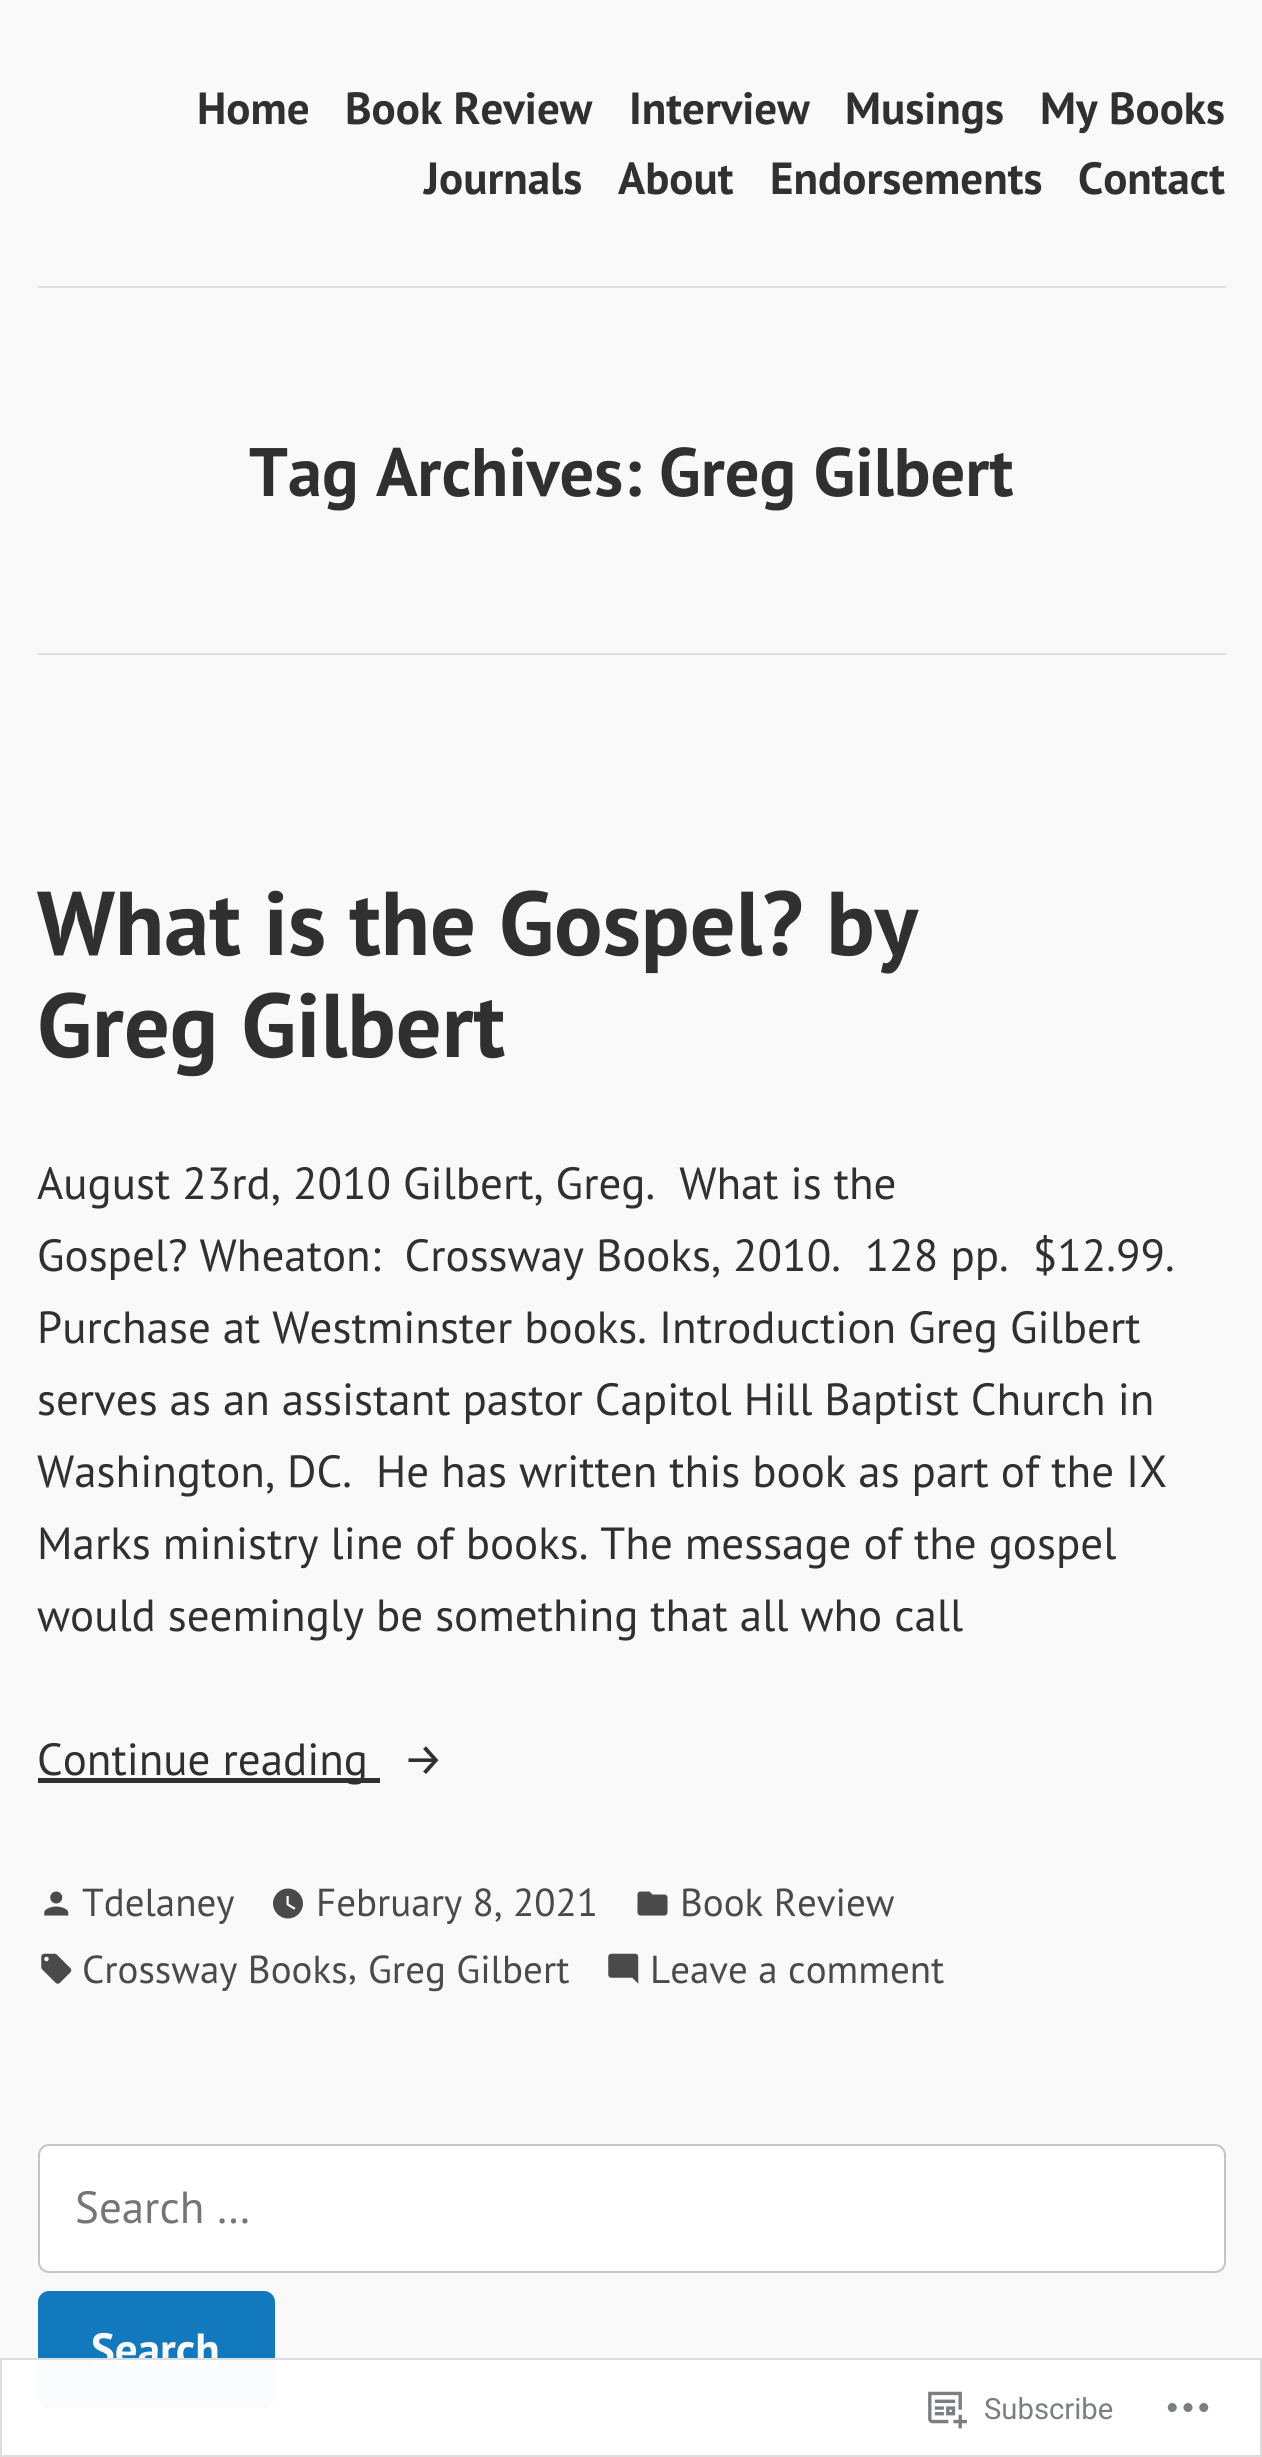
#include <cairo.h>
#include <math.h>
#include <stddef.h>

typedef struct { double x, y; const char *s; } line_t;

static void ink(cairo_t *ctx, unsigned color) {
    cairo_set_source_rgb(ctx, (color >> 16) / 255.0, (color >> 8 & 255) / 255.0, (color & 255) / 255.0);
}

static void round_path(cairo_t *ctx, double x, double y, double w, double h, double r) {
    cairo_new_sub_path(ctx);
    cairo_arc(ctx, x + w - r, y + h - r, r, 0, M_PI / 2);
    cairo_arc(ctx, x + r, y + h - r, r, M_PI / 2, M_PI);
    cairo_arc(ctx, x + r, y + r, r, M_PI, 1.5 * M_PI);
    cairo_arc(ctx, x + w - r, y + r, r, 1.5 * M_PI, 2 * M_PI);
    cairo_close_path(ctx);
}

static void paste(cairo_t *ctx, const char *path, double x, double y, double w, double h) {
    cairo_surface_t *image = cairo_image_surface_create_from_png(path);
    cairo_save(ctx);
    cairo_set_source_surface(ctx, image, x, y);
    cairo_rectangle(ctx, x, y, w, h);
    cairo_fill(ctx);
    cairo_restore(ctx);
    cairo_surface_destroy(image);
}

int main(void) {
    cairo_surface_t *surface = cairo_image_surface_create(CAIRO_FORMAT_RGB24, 1262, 2457);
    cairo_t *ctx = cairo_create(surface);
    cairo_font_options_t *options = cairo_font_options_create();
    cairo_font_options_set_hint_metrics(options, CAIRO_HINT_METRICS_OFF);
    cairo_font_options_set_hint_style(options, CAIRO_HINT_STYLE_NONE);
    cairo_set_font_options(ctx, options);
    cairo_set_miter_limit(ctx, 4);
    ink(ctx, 0xF9F9F9);
    cairo_paint(ctx);
    cairo_select_font_face(ctx, "PT Sans", CAIRO_FONT_SLANT_NORMAL, CAIRO_FONT_WEIGHT_BOLD);
    cairo_set_font_size(ctx, 45);
    ink(ctx, 0x303030);
    {
        static const line_t items[] = {
            {197, 124, "Home"},
            {345, 124, "Book Review"},
            {629, 124, "Interview"},
            {845, 124, "Musings"},
            {1040, 124, "My Books"},
            {424, 194, "Journals"},
            {618, 194, "About"},
            {770, 194, "Endorsements"},
            {1078, 194, "Contact"},
        };
        for (size_t i = 0; i < sizeof items / sizeof *items; i++) {
            cairo_move_to(ctx, items[i].x, items[i].y);
            cairo_show_text(ctx, items[i].s);
        }
    }
    ink(ctx, 0xDFDFDF);
    cairo_rectangle(ctx, 38, 286, 1188, 2);
    cairo_fill(ctx);
    cairo_set_font_size(ctx, 68.5);
    ink(ctx, 0x303030);
    cairo_move_to(ctx, 249, 496);
    cairo_show_text(ctx, "Tag Archives: Greg Gilbert");
    ink(ctx, 0xDFDFDF);
    cairo_rectangle(ctx, 38, 653, 1188, 2);
    cairo_fill(ctx);
    cairo_set_font_size(ctx, 90.5);
    ink(ctx, 0x303030);
    cairo_move_to(ctx, 37, 955);
    cairo_show_text(ctx, "What is the Gospel? by");
    cairo_move_to(ctx, 37, 1057);
    cairo_show_text(ctx, "Greg Gilbert");
    cairo_select_font_face(ctx, "PT Sans", CAIRO_FONT_SLANT_NORMAL, CAIRO_FONT_WEIGHT_NORMAL);
    cairo_set_font_size(ctx, 45);
    {
        static const line_t items[] = {
            {37, 1199, "August 23rd, 2010 Gilbert, Greg.  What is the"},
            {37, 1271, "Gospel? Wheaton:  Crossway Books, 2010.  128 pp.  $12.99."},
            {37, 1343, "Purchase at Westminster books. Introduction Greg Gilbert"},
            {37, 1415, "serves as an assistant pastor Capitol Hill Baptist Church in"},
            {37, 1487, "Washington, DC.  He has written this book as part of the IX"},
            {37, 1559, "Marks ministry line of books. The message of the gospel"},
            {37, 1631, "would seemingly be something that all who call"},
        };
        for (size_t i = 0; i < sizeof items / sizeof *items; i++) {
            cairo_move_to(ctx, items[i].x, items[i].y);
            cairo_show_text(ctx, items[i].s);
        }
    }
    cairo_rectangle(ctx, 38, 1778, 342, 5);
    cairo_fill(ctx);
    cairo_move_to(ctx, 37, 1775);
    cairo_show_text(ctx, "Continue reading");
    cairo_select_font_face(ctx, "Fira Sans", CAIRO_FONT_SLANT_NORMAL, CAIRO_FONT_WEIGHT_NORMAL);
    cairo_move_to(ctx, 403, 1775);
    cairo_show_text(ctx, "→");
    paste(ctx, "media/1.png", 44, 1891, 25, 25);
    cairo_select_font_face(ctx, "PT Sans", CAIRO_FONT_SLANT_NORMAL, CAIRO_FONT_WEIGHT_NORMAL);
    cairo_set_font_size(ctx, 39);
    ink(ctx, 0x4A4A4A);
    cairo_move_to(ctx, 82, 1916);
    cairo_show_text(ctx, "Tdelaney");
    paste(ctx, "media/2.png", 273, 1888, 30, 31);
    cairo_move_to(ctx, 316, 1916);
    cairo_show_text(ctx, "February 8, 2021");
    paste(ctx, "media/3.png", 637, 1891, 31, 25);
    cairo_move_to(ctx, 680, 1916);
    cairo_show_text(ctx, "Book Review");
    paste(ctx, "media/4.png", 41, 1953, 31, 31);
    {
        static const line_t items[] = {
            {82, 1983, "Crossway Books"},
            {348, 1979, ","},
            {368, 1983, "Greg Gilbert"},
        };
        for (size_t i = 0; i < sizeof items / sizeof *items; i++) {
            cairo_move_to(ctx, items[i].x, items[i].y);
            cairo_show_text(ctx, items[i].s);
        }
    }
    paste(ctx, "media/5.png", 608, 1953, 31, 31);
    cairo_move_to(ctx, 650, 1983);
    cairo_show_text(ctx, "Leave a comment");
    ink(ctx, 0xFFFFFF);
    round_path(ctx, 39, 2145, 1186, 127, 10);
    cairo_fill_preserve(ctx);
    ink(ctx, 0xC5C5C5);
    cairo_stroke(ctx);
    cairo_set_font_size(ctx, 45);
    ink(ctx, 0x757575);
    cairo_move_to(ctx, 75, 2223);
    cairo_show_text(ctx, "Search …");
    ink(ctx, 0x1279BE);
    round_path(ctx, 38, 2291, 237, 117, 11);
    cairo_fill(ctx);
    cairo_select_font_face(ctx, "PT Sans", CAIRO_FONT_SLANT_NORMAL, CAIRO_FONT_WEIGHT_BOLD);
    ink(ctx, 0xF9F9F9);
    cairo_move_to(ctx, 91, 2365);
    cairo_show_text(ctx, "Search");
    cairo_set_source_rgba(ctx, 1, 1, 1, 0.98);
    cairo_rectangle(ctx, 0, 2358, 1262, 99);
    cairo_fill(ctx);
    cairo_rectangle(ctx, 1, 2359, 1260, 97);
    cairo_set_source_rgba(ctx, 0.863, 0.863, 0.871, 0.98);
    cairo_stroke(ctx);
    paste(ctx, "media/6.png", 928, 2391, 39, 38);
    cairo_select_font_face(ctx, "Roboto", CAIRO_FONT_SLANT_NORMAL, CAIRO_FONT_WEIGHT_NORMAL);
    cairo_set_font_size(ctx, 29.25);
    ink(ctx, 0x7B7F84);
    cairo_move_to(ctx, 984, 2419);
    cairo_show_text(ctx, "Subscribe");
    paste(ctx, "media/7.png", 1167, 2403, 42, 9);
    cairo_surface_write_to_png(surface, "image.png");
    cairo_font_options_destroy(options);
    cairo_destroy(ctx);
    cairo_surface_destroy(surface);
    return 0;
}
